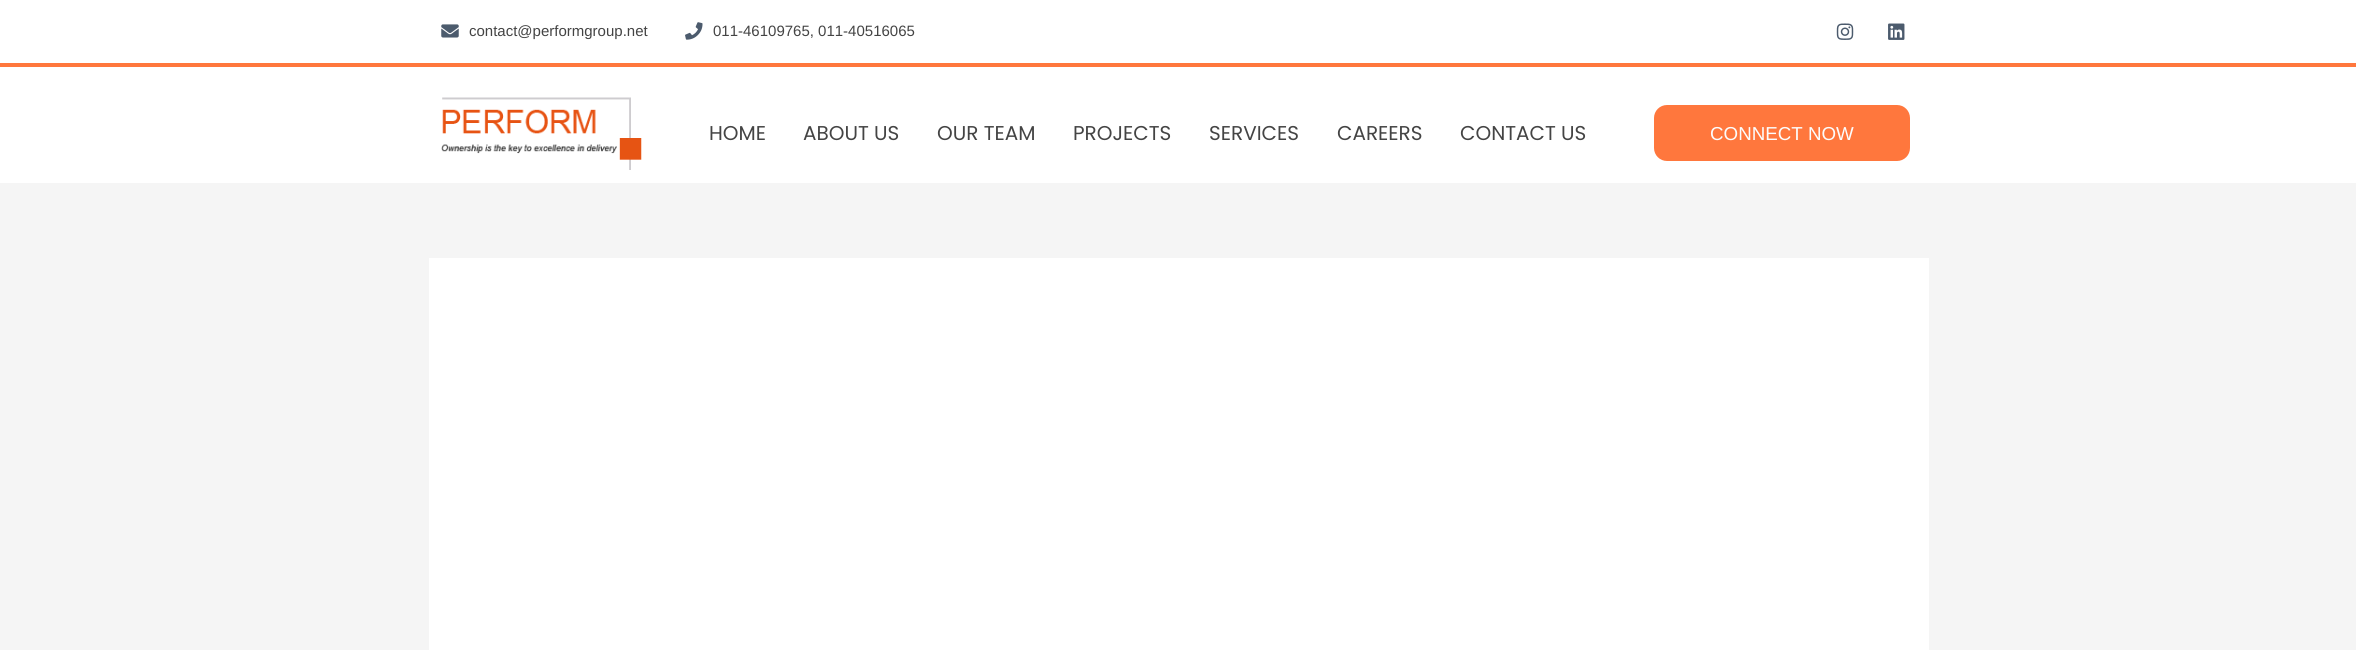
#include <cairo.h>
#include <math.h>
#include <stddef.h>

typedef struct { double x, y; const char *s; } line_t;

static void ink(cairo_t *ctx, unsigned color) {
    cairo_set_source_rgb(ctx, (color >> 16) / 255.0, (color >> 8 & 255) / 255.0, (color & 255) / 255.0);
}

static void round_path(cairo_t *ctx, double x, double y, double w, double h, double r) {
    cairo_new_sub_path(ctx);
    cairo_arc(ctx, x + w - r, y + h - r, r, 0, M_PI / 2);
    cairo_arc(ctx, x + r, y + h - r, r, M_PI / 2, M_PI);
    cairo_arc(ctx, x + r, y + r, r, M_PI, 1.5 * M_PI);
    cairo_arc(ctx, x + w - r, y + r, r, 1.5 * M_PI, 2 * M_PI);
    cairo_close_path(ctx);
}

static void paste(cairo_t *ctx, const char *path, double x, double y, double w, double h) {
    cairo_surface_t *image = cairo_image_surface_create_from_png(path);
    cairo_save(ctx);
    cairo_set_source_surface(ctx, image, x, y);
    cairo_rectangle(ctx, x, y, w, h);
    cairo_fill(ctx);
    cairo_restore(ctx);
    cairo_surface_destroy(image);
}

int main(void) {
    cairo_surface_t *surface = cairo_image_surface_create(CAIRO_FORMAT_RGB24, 2356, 650);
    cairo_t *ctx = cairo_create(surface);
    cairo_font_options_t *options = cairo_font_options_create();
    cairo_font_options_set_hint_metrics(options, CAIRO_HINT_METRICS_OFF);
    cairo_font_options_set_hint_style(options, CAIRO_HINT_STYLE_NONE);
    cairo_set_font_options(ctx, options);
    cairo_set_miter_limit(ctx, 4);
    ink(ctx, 0xF5F5F5);
    cairo_paint(ctx);
    ink(ctx, 0xFFFFFF);
    cairo_rectangle(ctx, 0, 0, 2356, 63);
    cairo_fill(ctx);
    paste(ctx, "media/1.png", 441, 24, 18, 14);
    cairo_select_font_face(ctx, "Liberation Sans", CAIRO_FONT_SLANT_NORMAL, CAIRO_FONT_WEIGHT_NORMAL);
    cairo_set_font_size(ctx, 15);
    ink(ctx, 0x444444);
    cairo_move_to(ctx, 469, 36);
    cairo_show_text(ctx, "contact@performgroup.net");
    paste(ctx, "media/2.png", 685, 22, 18, 18);
    cairo_move_to(ctx, 713, 36);
    cairo_show_text(ctx, "011-46109765, 011-40516065");
    paste(ctx, "media/3.png", 1836, 23, 18, 17);
    paste(ctx, "media/4.png", 1888, 23, 17, 17);
    ink(ctx, 0xFFFFFF);
    cairo_rectangle(ctx, 0, 67, 2356, 116);
    cairo_fill(ctx);
    ink(ctx, 0xFF773D);
    cairo_rectangle(ctx, 0, 63, 2356, 4);
    cairo_fill(ctx);
    paste(ctx, "media/5.png", 441, 97, 201, 73);
    cairo_select_font_face(ctx, "Poppins", CAIRO_FONT_SLANT_NORMAL, CAIRO_FONT_WEIGHT_NORMAL);
    cairo_set_font_size(ctx, 20);
    ink(ctx, 0x444444);
    {
        static const line_t items[] = {
            {709, 140, "HOME"},
            {803, 140, "ABOUT US"},
            {937, 140, "OUR TEAM"},
            {1073, 140, "PROJECTS"},
            {1209, 140, "SERVICES"},
            {1337, 140, "CAREERS"},
            {1460, 140, "CONTACT US"},
        };
        for (size_t i = 0; i < sizeof items / sizeof *items; i++) {
            cairo_move_to(ctx, items[i].x, items[i].y);
            cairo_show_text(ctx, items[i].s);
        }
    }
    ink(ctx, 0xFF773D);
    round_path(ctx, 1654, 105, 256, 56, 13);
    cairo_fill(ctx);
    cairo_select_font_face(ctx, "Liberation Sans", CAIRO_FONT_SLANT_NORMAL, CAIRO_FONT_WEIGHT_NORMAL);
    cairo_set_font_size(ctx, 18.75);
    ink(ctx, 0xFCFCFC);
    cairo_move_to(ctx, 1710, 140);
    cairo_show_text(ctx, "CONNECT NOW");
    ink(ctx, 0xFFFFFF);
    cairo_rectangle(ctx, 429, 258, 1500, 392);
    cairo_fill(ctx);
    cairo_surface_write_to_png(surface, "image.png");
    cairo_font_options_destroy(options);
    cairo_destroy(ctx);
    cairo_surface_destroy(surface);
    return 0;
}
